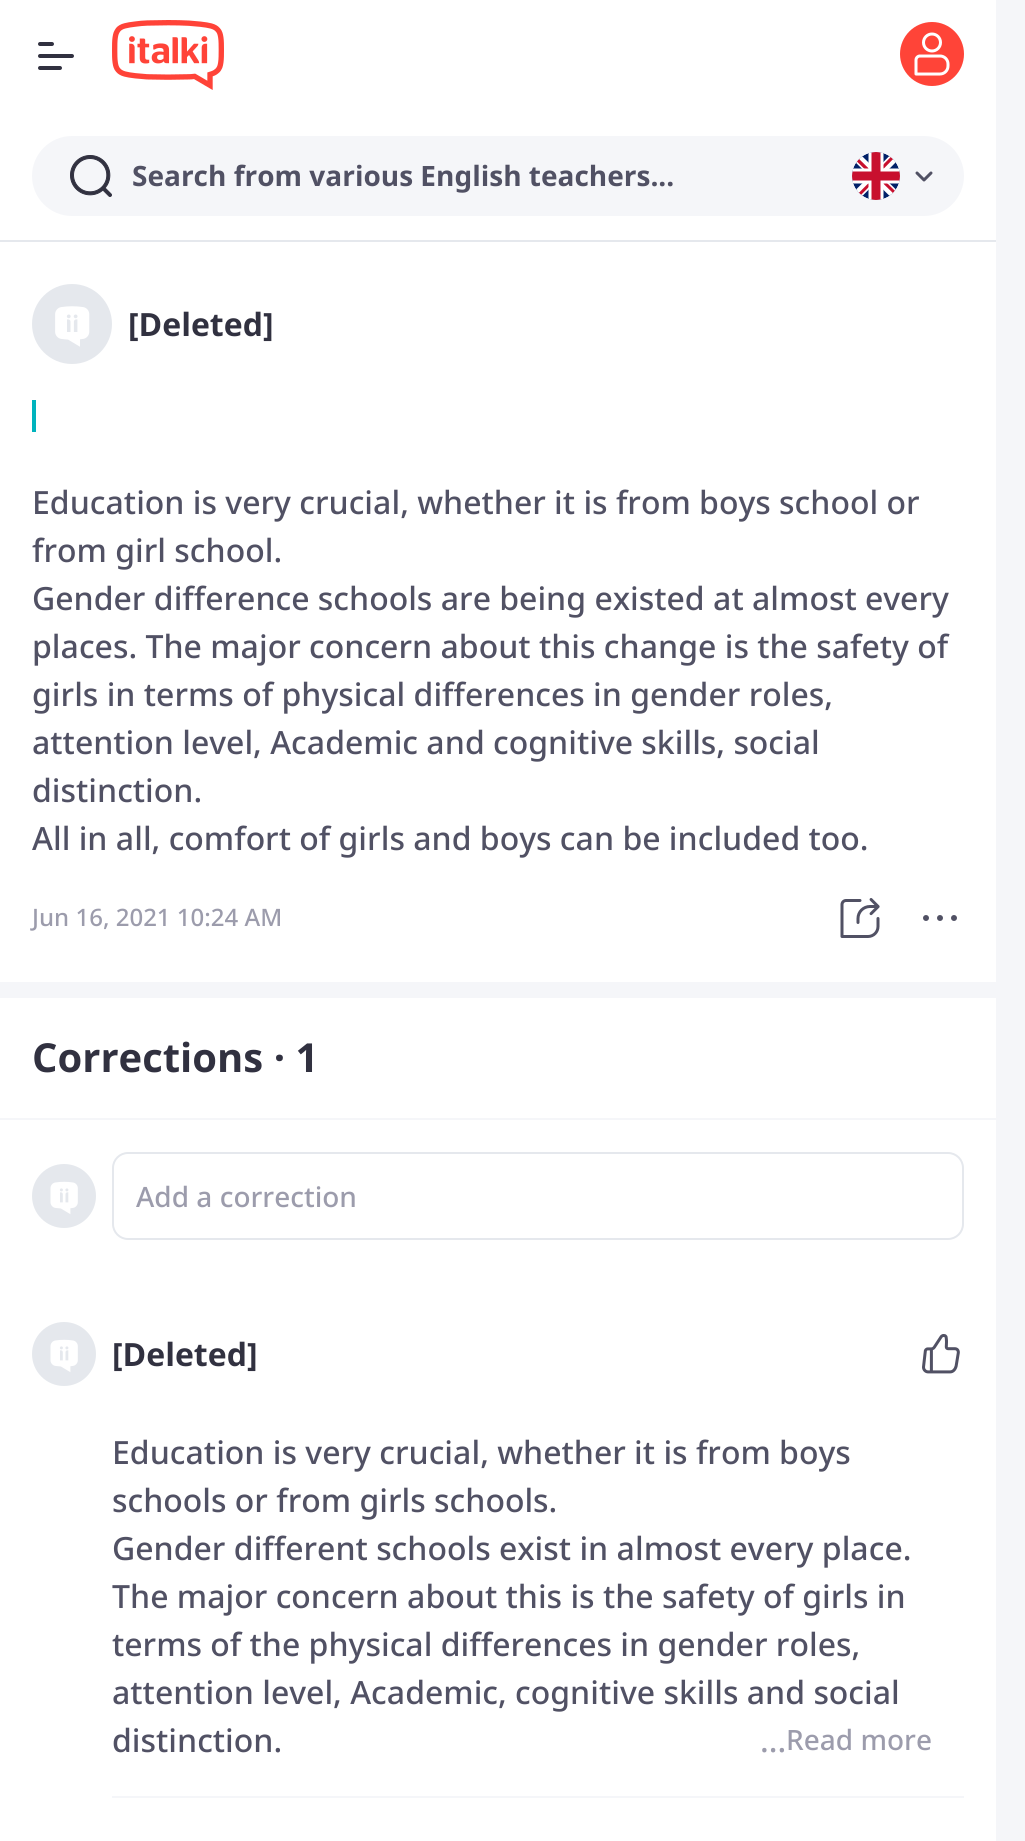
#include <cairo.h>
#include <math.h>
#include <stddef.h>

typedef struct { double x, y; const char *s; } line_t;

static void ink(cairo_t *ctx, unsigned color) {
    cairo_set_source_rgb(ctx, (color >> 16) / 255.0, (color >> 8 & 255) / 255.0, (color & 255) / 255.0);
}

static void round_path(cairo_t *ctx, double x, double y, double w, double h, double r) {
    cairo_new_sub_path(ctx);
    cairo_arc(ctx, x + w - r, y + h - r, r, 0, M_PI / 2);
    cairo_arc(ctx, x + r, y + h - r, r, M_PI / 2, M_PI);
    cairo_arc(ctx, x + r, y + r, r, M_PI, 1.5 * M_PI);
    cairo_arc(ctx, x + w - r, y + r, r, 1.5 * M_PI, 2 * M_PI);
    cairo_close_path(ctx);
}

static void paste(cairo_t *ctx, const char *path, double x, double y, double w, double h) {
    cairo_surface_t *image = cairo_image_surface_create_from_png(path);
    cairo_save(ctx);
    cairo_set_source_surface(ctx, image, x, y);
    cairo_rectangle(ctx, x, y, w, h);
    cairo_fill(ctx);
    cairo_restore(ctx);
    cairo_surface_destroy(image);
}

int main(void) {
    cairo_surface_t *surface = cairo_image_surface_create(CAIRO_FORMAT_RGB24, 1025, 1841);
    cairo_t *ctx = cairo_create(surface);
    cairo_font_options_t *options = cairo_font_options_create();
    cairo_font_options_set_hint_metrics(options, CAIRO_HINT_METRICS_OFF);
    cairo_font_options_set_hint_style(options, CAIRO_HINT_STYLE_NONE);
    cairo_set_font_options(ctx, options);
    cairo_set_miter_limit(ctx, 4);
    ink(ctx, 0xF5F6F9);
    cairo_paint(ctx);
    ink(ctx, 0xFFFFFF);
    cairo_rectangle(ctx, 0, 0, 996, 240);
    cairo_fill(ctx);
    ink(ctx, 0xE5E8ED);
    cairo_rectangle(ctx, 0, 240, 996, 2);
    cairo_fill(ctx);
    paste(ctx, "media/1.png", 38, 42, 36, 28);
    paste(ctx, "media/2.png", 112, 20, 112, 70);
    ink(ctx, 0xFF4438);
    cairo_arc(ctx, 932, 54, 32, 0, 2 * M_PI);
    cairo_fill(ctx);
    paste(ctx, "media/3.png", 914, 32, 36, 44);
    ink(ctx, 0xF5F6F9);
    round_path(ctx, 32, 136, 932, 80, 40);
    cairo_fill(ctx);
    paste(ctx, "media/4.png", 70, 155, 42, 42);
    cairo_select_font_face(ctx, "Noto Sans", CAIRO_FONT_SLANT_NORMAL, CAIRO_FONT_WEIGHT_BOLD);
    cairo_set_font_size(ctx, 28);
    ink(ctx, 0x515164);
    cairo_move_to(ctx, 132, 186);
    cairo_show_text(ctx, "Search from various English teachers...");
    paste(ctx, "media/5.png", 852, 152, 48, 48);
    paste(ctx, "media/6.png", 915, 171, 18, 11);
    ink(ctx, 0xFFFFFF);
    cairo_rectangle(ctx, 0, 242, 996, 740);
    cairo_fill(ctx);
    paste(ctx, "media/7.png", 32, 284, 80, 80);
    cairo_set_font_size(ctx, 32);
    ink(ctx, 0x313140);
    cairo_move_to(ctx, 128, 336);
    cairo_show_text(ctx, "[Deleted]");
    ink(ctx, 0x00B3BD);
    cairo_rectangle(ctx, 32, 400, 4, 32);
    cairo_fill(ctx);
    cairo_select_font_face(ctx, "Noto Sans Medium", CAIRO_FONT_SLANT_NORMAL, CAIRO_FONT_WEIGHT_NORMAL);
    ink(ctx, 0x515164);
    {
        static const line_t items[] = {
            {32, 514, "Education is very crucial, whether it is from boys school or"},
            {32, 562, "from girl school."},
            {32, 610, "Gender difference schools are being existed at almost every"},
            {32, 658, "places. The major concern about this change is the safety of"},
            {32, 706, "girls in terms of physical differences in gender roles,"},
            {32, 754, "attention level, Academic and cognitive skills, social"},
            {32, 802, "distinction."},
            {32, 850, "All in all, comfort of girls and boys can be included too."},
        };
        for (size_t i = 0; i < sizeof items / sizeof *items; i++) {
            cairo_move_to(ctx, items[i].x, items[i].y);
            cairo_show_text(ctx, items[i].s);
        }
    }
    cairo_set_font_size(ctx, 24);
    ink(ctx, 0x9C9CAC);
    cairo_move_to(ctx, 32, 926);
    cairo_show_text(ctx, "Jun 16, 2021 10:24 AM");
    paste(ctx, "media/8.png", 840, 898, 40, 40);
    paste(ctx, "media/9.png", 923, 915, 34, 6);
    ink(ctx, 0xFFFFFF);
    cairo_rectangle(ctx, 0, 998, 996, 843);
    cairo_fill(ctx);
    cairo_select_font_face(ctx, "Noto Sans", CAIRO_FONT_SLANT_NORMAL, CAIRO_FONT_WEIGHT_BOLD);
    cairo_set_font_size(ctx, 40);
    ink(ctx, 0x313140);
    cairo_move_to(ctx, 32, 1072);
    cairo_show_text(ctx, "Corrections · 1");
    ink(ctx, 0xF5F6F9);
    cairo_rectangle(ctx, 0, 1118, 996, 2);
    cairo_fill(ctx);
    paste(ctx, "media/10.png", 32, 1164, 64, 64);
    round_path(ctx, 113, 1153, 850, 86, 15);
    ink(ctx, 0xE5E8ED);
    cairo_stroke(ctx);
    cairo_select_font_face(ctx, "Noto Sans Medium", CAIRO_FONT_SLANT_NORMAL, CAIRO_FONT_WEIGHT_NORMAL);
    cairo_set_font_size(ctx, 28);
    ink(ctx, 0x9C9CAC);
    cairo_move_to(ctx, 136, 1207);
    cairo_show_text(ctx, "Add a correction");
    paste(ctx, "media/10.png", 32, 1322, 64, 64);
    cairo_select_font_face(ctx, "Noto Sans", CAIRO_FONT_SLANT_NORMAL, CAIRO_FONT_WEIGHT_BOLD);
    cairo_set_font_size(ctx, 32);
    ink(ctx, 0x313140);
    cairo_move_to(ctx, 112, 1366);
    cairo_show_text(ctx, "[Deleted]");
    paste(ctx, "media/11.png", 922, 1334, 38, 40);
    cairo_select_font_face(ctx, "Noto Sans Medium", CAIRO_FONT_SLANT_NORMAL, CAIRO_FONT_WEIGHT_NORMAL);
    ink(ctx, 0x515164);
    {
        static const line_t items[] = {
            {112, 1464, "Education is very crucial, whether it is from boys"},
            {112, 1512, "schools or from girls schools."},
            {112, 1560, "Gender different schools exist in almost every place."},
            {112, 1608, "The major concern about this is the safety of girls in"},
            {112, 1656, "terms of the physical differences in gender roles,"},
            {112, 1704, "attention level, Academic, cognitive skills and social"},
            {112, 1752, "distinction."},
        };
        for (size_t i = 0; i < sizeof items / sizeof *items; i++) {
            cairo_move_to(ctx, items[i].x, items[i].y);
            cairo_show_text(ctx, items[i].s);
        }
    }
    ink(ctx, 0x9C9CAC);
    cairo_move_to(ctx, 760, 1752);
    cairo_show_text(ctx, "...");
    cairo_set_font_size(ctx, 28);
    cairo_move_to(ctx, 786, 1750);
    cairo_show_text(ctx, "Read more");
    ink(ctx, 0xF5F6F9);
    cairo_rectangle(ctx, 112, 1796, 852, 2);
    cairo_fill(ctx);
    cairo_surface_write_to_png(surface, "image.png");
    cairo_font_options_destroy(options);
    cairo_destroy(ctx);
    cairo_surface_destroy(surface);
    return 0;
}
